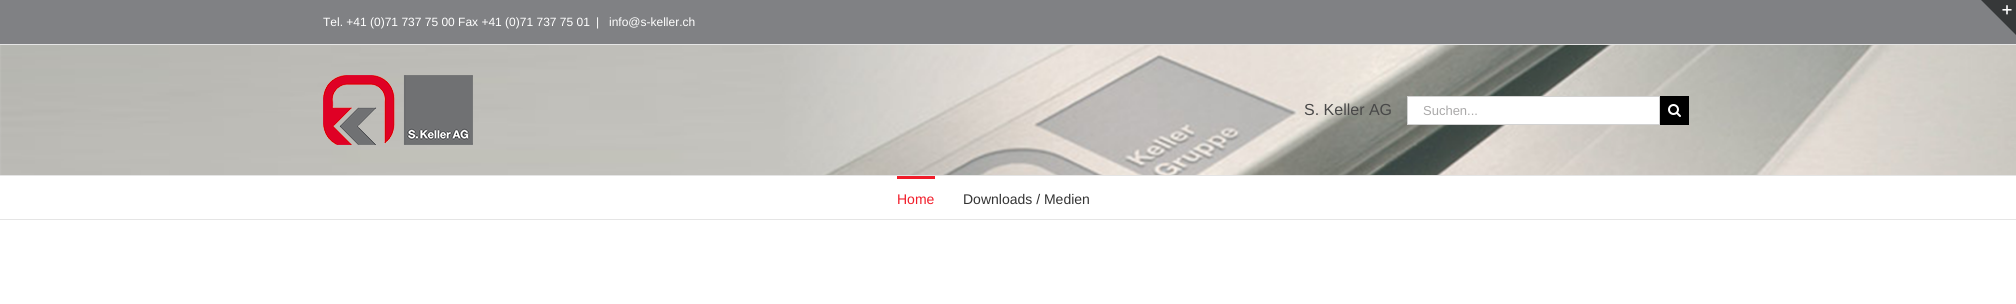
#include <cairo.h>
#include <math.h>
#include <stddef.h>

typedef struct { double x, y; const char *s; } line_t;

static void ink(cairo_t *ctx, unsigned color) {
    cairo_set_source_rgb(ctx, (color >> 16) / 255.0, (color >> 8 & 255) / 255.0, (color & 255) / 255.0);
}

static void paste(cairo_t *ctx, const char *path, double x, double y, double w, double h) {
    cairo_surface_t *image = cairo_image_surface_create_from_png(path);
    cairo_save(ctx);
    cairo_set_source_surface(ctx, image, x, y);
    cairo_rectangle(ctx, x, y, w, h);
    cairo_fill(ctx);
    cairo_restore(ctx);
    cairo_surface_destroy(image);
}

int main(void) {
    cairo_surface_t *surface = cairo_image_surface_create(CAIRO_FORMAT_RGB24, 2016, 304);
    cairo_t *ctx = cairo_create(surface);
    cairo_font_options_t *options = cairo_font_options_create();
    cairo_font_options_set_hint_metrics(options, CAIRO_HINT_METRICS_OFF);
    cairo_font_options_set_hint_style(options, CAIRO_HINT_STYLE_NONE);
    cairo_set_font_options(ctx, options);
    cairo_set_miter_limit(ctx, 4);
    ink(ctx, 0xFFFFFF);
    cairo_paint(ctx);
    ink(ctx, 0x808184);
    cairo_rectangle(ctx, 0, 0, 2016, 44);
    cairo_fill(ctx);
    ink(ctx, 0xE5E5E5);
    cairo_rectangle(ctx, 0, 44, 2016, 1);
    cairo_fill(ctx);
    cairo_select_font_face(ctx, "Liberation Sans", CAIRO_FONT_SLANT_NORMAL, CAIRO_FONT_WEIGHT_NORMAL);
    cairo_set_font_size(ctx, 12);
    ink(ctx, 0xFFFFFF);
    {
        static const line_t items[] = {
            {323, 26, "Tel. +41 (0)71 737 75 00 Fax +41 (0)71 737 75 01"},
            {596, 26, "|"},
            {609, 26, "info@s-keller.ch"},
        };
        for (size_t i = 0; i < sizeof items / sizeof *items; i++) {
            cairo_move_to(ctx, items[i].x, items[i].y);
            cairo_show_text(ctx, items[i].s);
        }
    }
    paste(ctx, "media/1.png", 0, 45, 2016, 130);
    ink(ctx, 0xE5E5E5);
    cairo_rectangle(ctx, 0, 175, 2016, 1);
    cairo_fill(ctx);
    paste(ctx, "media/2.png", 323, 75, 150, 70);
    cairo_set_font_size(ctx, 16);
    ink(ctx, 0x484848);
    cairo_move_to(ctx, 1304, 115);
    cairo_show_text(ctx, "S. Keller AG");
    ink(ctx, 0xFFFFFF);
    cairo_rectangle(ctx, 1407.5, 96.5, 252, 28);
    cairo_fill_preserve(ctx);
    ink(ctx, 0xD2D2D2);
    cairo_set_line_width(ctx, 1);
    cairo_stroke(ctx);
    cairo_set_font_size(ctx, 13);
    ink(ctx, 0xAAA9A9);
    cairo_move_to(ctx, 1423, 115);
    cairo_show_text(ctx, "Suchen...");
    ink(ctx, 0x000000);
    cairo_rectangle(ctx, 1660, 96, 29, 29);
    cairo_fill(ctx);
    paste(ctx, "media/3.png", 1668, 104, 13, 13);
    ink(ctx, 0xE5E5E5);
    cairo_rectangle(ctx, 0, 219, 2016, 1);
    cairo_fill(ctx);
    ink(ctx, 0xF11C29);
    cairo_rectangle(ctx, 897, 176, 38, 3);
    cairo_fill(ctx);
    cairo_set_font_size(ctx, 14);
    cairo_move_to(ctx, 897, 204);
    cairo_show_text(ctx, "Home");
    ink(ctx, 0x333333);
    cairo_move_to(ctx, 963, 204);
    cairo_show_text(ctx, "Downloads / Medien");
    ink(ctx, 0x363839);
    cairo_new_path(ctx);
    cairo_move_to(ctx, 1981, 0);
    cairo_line_to(ctx, 2016, 0);
    cairo_line_to(ctx, 2016, 35);
    cairo_close_path(ctx);
    cairo_fill(ctx);
    paste(ctx, "media/4.png", 2002, 5, 10, 10);
    cairo_surface_write_to_png(surface, "image.png");
    cairo_font_options_destroy(options);
    cairo_destroy(ctx);
    cairo_surface_destroy(surface);
    return 0;
}
